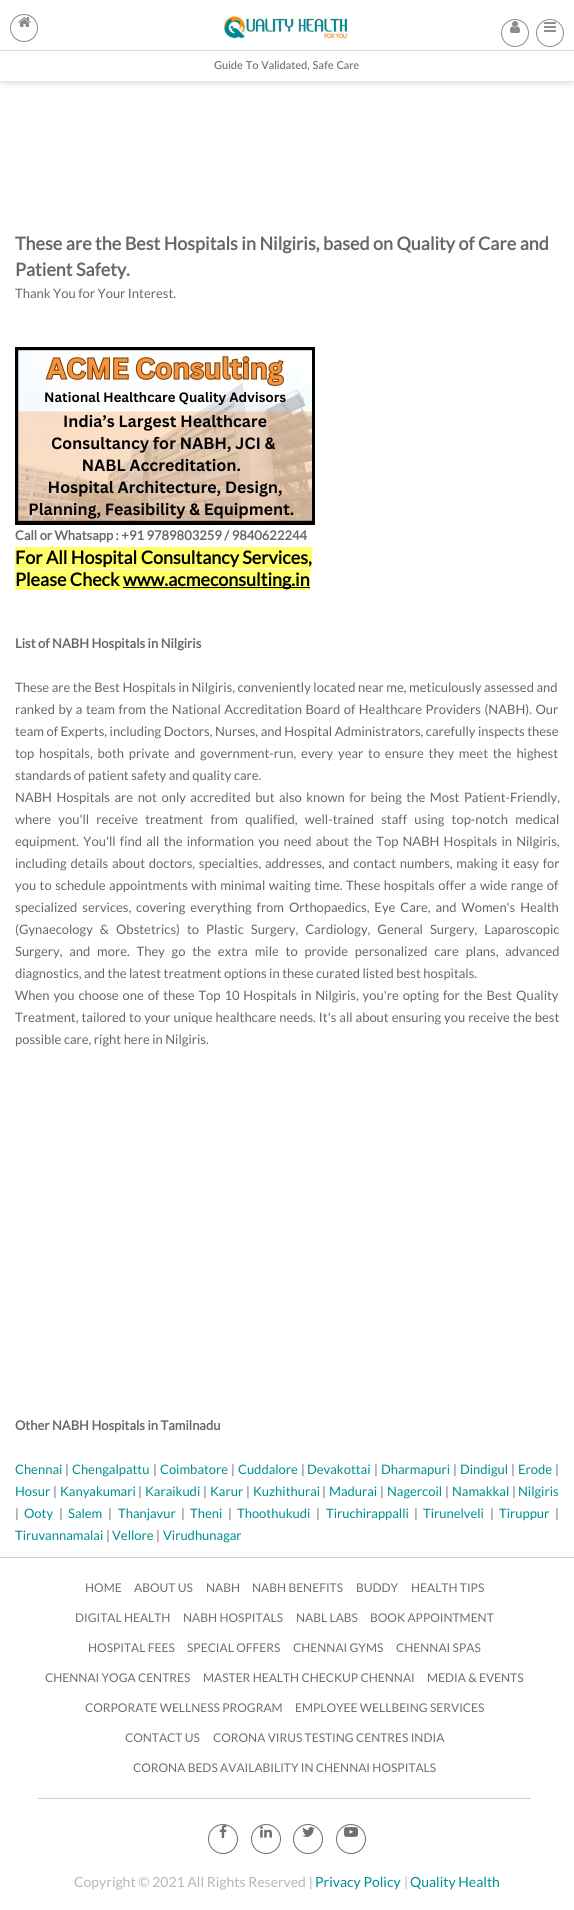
#include <cairo.h>
#include <math.h>
#include <stddef.h>

typedef struct { double x, y; const char *s; } line_t;

static void ink(cairo_t *ctx, unsigned color) {
    cairo_set_source_rgb(ctx, (color >> 16) / 255.0, (color >> 8 & 255) / 255.0, (color & 255) / 255.0);
}

static void write_spaced(cairo_t *ctx, double x, double y, const char *s, double letter, double word) {
    cairo_move_to(ctx, x, y);
    while (*s) {
        char ch[5] = {0};
        int n = 0;
        do ch[n++] = *s++; while ((*s & 0xC0) == 0x80);
        cairo_show_text(ctx, ch);
        cairo_rel_move_to(ctx, letter + word * (*ch == ' '), 0);
    }
}

static void round_path(cairo_t *ctx, double x, double y, double w, double h, double r) {
    cairo_new_sub_path(ctx);
    cairo_arc(ctx, x + w - r, y + h - r, r, 0, M_PI / 2);
    cairo_arc(ctx, x + r, y + h - r, r, M_PI / 2, M_PI);
    cairo_arc(ctx, x + r, y + r, r, M_PI, 1.5 * M_PI);
    cairo_arc(ctx, x + w - r, y + r, r, 1.5 * M_PI, 2 * M_PI);
    cairo_close_path(ctx);
}

static void blur_box(cairo_t *ctx, double x, double y, double w, double h, double r, double blur, double alpha) {
    cairo_push_group_with_content(ctx, CAIRO_CONTENT_ALPHA);
    cairo_set_operator(ctx, CAIRO_OPERATOR_SOURCE);
    for (int i = 15; i >= -15 && fmin(w, h) + blur * i / 3 > 0; i -= 2) {
        double e = blur * i / 6;
        cairo_set_source_rgba(ctx, 0, 0, 0, alpha * erfc((i - 1) / 8.5) / 2);
        round_path(ctx, x - e, y - e, w + 2 * e, h + 2 * e, fmax(0, fmin(r + e + blur * .6, fmin(w, h) / 2 + e)));
        cairo_fill(ctx);
    }
    cairo_pattern_t *soft = cairo_pop_group(ctx);
    cairo_mask(ctx, soft);
    cairo_pattern_destroy(soft);
}

static void paste(cairo_t *ctx, const char *path, double x, double y, double w, double h) {
    cairo_surface_t *image = cairo_image_surface_create_from_png(path);
    cairo_save(ctx);
    cairo_set_source_surface(ctx, image, x, y);
    cairo_rectangle(ctx, x, y, w, h);
    cairo_fill(ctx);
    cairo_restore(ctx);
    cairo_surface_destroy(image);
}

int main(void) {
    cairo_surface_t *surface = cairo_image_surface_create(CAIRO_FORMAT_RGB24, 574, 1910);
    cairo_t *ctx = cairo_create(surface);
    cairo_font_options_t *options = cairo_font_options_create();
    cairo_font_options_set_hint_metrics(options, CAIRO_HINT_METRICS_OFF);
    cairo_font_options_set_hint_style(options, CAIRO_HINT_STYLE_NONE);
    cairo_set_font_options(ctx, options);
    cairo_set_miter_limit(ctx, 4);
    ink(ctx, 0xFFFFFF);
    cairo_paint(ctx);
    cairo_save(ctx);
    cairo_rectangle(ctx, 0, 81, 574, 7);
    cairo_clip(ctx);
    ink(ctx, 0x888888);
    blur_box(ctx, 3, 3, 568, 75, 0, 5, 1);
    cairo_restore(ctx);
    cairo_arc(ctx, 24, 28, 13.5, 0, 2 * M_PI);
    ink(ctx, 0x8B8C8D);
    cairo_set_line_width(ctx, 1);
    cairo_stroke(ctx);
    paste(ctx, "media/1.png", 18, 17, 13, 10);
    cairo_arc(ctx, 515, 33, 13.5, 0, 2 * M_PI);
    cairo_stroke(ctx);
    paste(ctx, "media/2.png", 510, 21, 10, 12);
    cairo_arc(ctx, 550, 33, 13.5, 0, 2 * M_PI);
    cairo_stroke(ctx);
    paste(ctx, "media/3.png", 544, 22, 12, 10);
    paste(ctx, "media/4.png", 223, 16, 125, 23);
    ink(ctx, 0xDCDCDC);
    cairo_rectangle(ctx, 0, 50, 574, 1);
    cairo_fill(ctx);
    cairo_select_font_face(ctx, "Lato Medium", CAIRO_FONT_SLANT_NORMAL, CAIRO_FONT_WEIGHT_NORMAL);
    cairo_set_font_size(ctx, 11);
    ink(ctx, 0x6E6F71);
    cairo_move_to(ctx, 214, 69);
    cairo_show_text(ctx, "Guide To Validated, Safe Care");
    cairo_select_font_face(ctx, "Lato", CAIRO_FONT_SLANT_NORMAL, CAIRO_FONT_WEIGHT_BOLD);
    cairo_set_font_size(ctx, 18);
    ink(ctx, 0x64686D);
    cairo_move_to(ctx, 15, 250);
    cairo_show_text(ctx, "These are the Best Hospitals in Nilgiris, based on Quality of Care and");
    cairo_move_to(ctx, 15, 276);
    cairo_show_text(ctx, "Patient Safety.");
    cairo_select_font_face(ctx, "Lato", CAIRO_FONT_SLANT_NORMAL, CAIRO_FONT_WEIGHT_NORMAL);
    cairo_set_font_size(ctx, 13);
    cairo_move_to(ctx, 15, 298);
    cairo_show_text(ctx, "Thank You for Your Interest.");
    paste(ctx, "media/5.png", 15, 347, 300, 178);
    cairo_select_font_face(ctx, "Lato", CAIRO_FONT_SLANT_NORMAL, CAIRO_FONT_WEIGHT_BOLD);
    cairo_move_to(ctx, 15, 540);
    cairo_show_text(ctx, "Call or Whatsapp : +91 9789803259 / 9840622244");
    ink(ctx, 0xFFFF66);
    cairo_rectangle(ctx, 15, 547, 297, 21);
    cairo_fill(ctx);
    cairo_set_font_size(ctx, 18);
    ink(ctx, 0x000000);
    cairo_move_to(ctx, 15, 564);
    cairo_show_text(ctx, "For All Hospital Consultancy Services,");
    ink(ctx, 0xFFFF66);
    cairo_rectangle(ctx, 15, 569, 295, 21);
    cairo_fill(ctx);
    ink(ctx, 0x000000);
    cairo_move_to(ctx, 15, 586);
    cairo_show_text(ctx, "Please Check");
    cairo_rectangle(ctx, 123, 587, 187, 1);
    cairo_fill(ctx);
    cairo_move_to(ctx, 123, 586);
    cairo_show_text(ctx, "www.acmeconsulting.in");
    cairo_set_font_size(ctx, 13);
    ink(ctx, 0x64686D);
    cairo_move_to(ctx, 15, 648);
    cairo_show_text(ctx, "List of NABH Hospitals in Nilgiris");
    cairo_select_font_face(ctx, "Lato", CAIRO_FONT_SLANT_NORMAL, CAIRO_FONT_WEIGHT_NORMAL);
    cairo_move_to(ctx, 15, 692);
    cairo_show_text(ctx, "These are the Best Hospitals in Nilgiris, conveniently located near me, meticulously assessed and");
    write_spaced(ctx, 15, 714, "ranked by a team from the National Accreditation Board of Healthcare Providers (NABH). Our", 0, 1);
    cairo_move_to(ctx, 15, 736);
    cairo_show_text(ctx, "team of Experts, including Doctors, Nurses, and Hospital Administrators, carefully inspects these");
    write_spaced(ctx, 15, 758, "top hospitals, both private and government-run, every year to ensure they meet the highest", 0, 2.25);
    cairo_move_to(ctx, 15, 780);
    cairo_show_text(ctx, "standards of patient safety and quality care.");
    write_spaced(ctx, 15, 802, "NABH Hospitals are not only accredited but also known for being the Most Patient-Friendly,", 0, 2);
    write_spaced(ctx, 15, 824, "where you'll receive treatment from qualified, well-trained staff using top-notch medical", 0, 4.75);
    write_spaced(ctx, 15, 846, "equipment. You'll find all the information you need about the Top NABH Hospitals in Nilgiris,", 0, 1.7);
    write_spaced(ctx, 15, 868, "including details about doctors, specialties, addresses, and contact numbers, making it easy for", 0, 1.25);
    write_spaced(ctx, 15, 890, "you to schedule appointments with minimal waiting time. These hospitals offer a wide range of", 0, 1);
    write_spaced(ctx, 15, 912, "specialized services, covering everything from Orthopaedics, Eye Care, and Women's Health", 0, 2.4);
    write_spaced(ctx, 15, 934, "(Gynaecology & Obstetrics) to Plastic Surgery, Cardiology, General Surgery, Laparoscopic", 0, 4.5);
    write_spaced(ctx, 15, 956, "Surgery, and more. They go the extra mile to provide personalized care plans, advanced", 0, 4.25);
    cairo_move_to(ctx, 15, 978);
    cairo_show_text(ctx, "diagnostics, and the latest treatment options in these curated listed best hospitals.");
    write_spaced(ctx, 15, 1000, "When you choose one of these Top 10 Hospitals in Nilgiris, you're opting for the Best Quality", 0, 1.4);
    write_spaced(ctx, 15, 1022, "Treatment, tailored to your unique healthcare needs. It's all about ensuring you receive the best", 0, 0.5);
    cairo_move_to(ctx, 15, 1044);
    cairo_show_text(ctx, "possible care, right here in Nilgiris.");
    cairo_select_font_face(ctx, "Lato", CAIRO_FONT_SLANT_NORMAL, CAIRO_FONT_WEIGHT_BOLD);
    cairo_move_to(ctx, 15, 1430);
    cairo_show_text(ctx, "Other NABH Hospitals in Tamilnadu");
    cairo_select_font_face(ctx, "Lato", CAIRO_FONT_SLANT_NORMAL, CAIRO_FONT_WEIGHT_NORMAL);
    ink(ctx, 0x008F90);
    cairo_move_to(ctx, 15, 1474);
    cairo_show_text(ctx, "Chennai");
    ink(ctx, 0x64686D);
    cairo_move_to(ctx, 65, 1474);
    cairo_show_text(ctx, "|");
    ink(ctx, 0x008F90);
    cairo_move_to(ctx, 72, 1474);
    cairo_show_text(ctx, "Chengalpattu");
    ink(ctx, 0x64686D);
    cairo_move_to(ctx, 153, 1474);
    cairo_show_text(ctx, "|");
    ink(ctx, 0x008F90);
    cairo_move_to(ctx, 160, 1474);
    cairo_show_text(ctx, "Coimbatore");
    ink(ctx, 0x64686D);
    cairo_move_to(ctx, 231, 1474);
    cairo_show_text(ctx, "|");
    ink(ctx, 0x008F90);
    cairo_move_to(ctx, 238, 1474);
    cairo_show_text(ctx, "Cuddalore");
    ink(ctx, 0x64686D);
    cairo_move_to(ctx, 301, 1474);
    cairo_show_text(ctx, "|");
    ink(ctx, 0x008F90);
    cairo_move_to(ctx, 307, 1474);
    cairo_show_text(ctx, "Devakottai");
    ink(ctx, 0x64686D);
    cairo_move_to(ctx, 374, 1474);
    cairo_show_text(ctx, "|");
    ink(ctx, 0x008F90);
    cairo_move_to(ctx, 381, 1474);
    cairo_show_text(ctx, "Dharmapuri");
    ink(ctx, 0x64686D);
    cairo_move_to(ctx, 453, 1474);
    cairo_show_text(ctx, "|");
    ink(ctx, 0x008F90);
    cairo_move_to(ctx, 460, 1474);
    cairo_show_text(ctx, "Dindigul");
    ink(ctx, 0x64686D);
    cairo_move_to(ctx, 511, 1474);
    cairo_show_text(ctx, "|");
    ink(ctx, 0x008F90);
    cairo_move_to(ctx, 518, 1474);
    cairo_show_text(ctx, "Erode");
    ink(ctx, 0x64686D);
    cairo_move_to(ctx, 555, 1474);
    cairo_show_text(ctx, "|");
    ink(ctx, 0x008F90);
    cairo_move_to(ctx, 15, 1496);
    cairo_show_text(ctx, "Hosur");
    ink(ctx, 0x64686D);
    cairo_move_to(ctx, 53, 1496);
    cairo_show_text(ctx, "|");
    ink(ctx, 0x008F90);
    cairo_move_to(ctx, 60, 1496);
    cairo_show_text(ctx, "Kanyakumari");
    ink(ctx, 0x64686D);
    cairo_move_to(ctx, 138, 1496);
    cairo_show_text(ctx, "|");
    ink(ctx, 0x008F90);
    cairo_move_to(ctx, 145, 1496);
    cairo_show_text(ctx, "Karaikudi");
    ink(ctx, 0x64686D);
    cairo_move_to(ctx, 203, 1496);
    cairo_show_text(ctx, "|");
    ink(ctx, 0x008F90);
    cairo_move_to(ctx, 210, 1496);
    cairo_show_text(ctx, "Karur");
    ink(ctx, 0x64686D);
    cairo_move_to(ctx, 246, 1496);
    cairo_show_text(ctx, "|");
    ink(ctx, 0x008F90);
    cairo_move_to(ctx, 253, 1496);
    cairo_show_text(ctx, "Kuzhithurai");
    ink(ctx, 0x64686D);
    cairo_move_to(ctx, 322, 1496);
    cairo_show_text(ctx, "|");
    ink(ctx, 0x008F90);
    cairo_move_to(ctx, 329, 1496);
    cairo_show_text(ctx, "Madurai");
    ink(ctx, 0x64686D);
    cairo_move_to(ctx, 380, 1496);
    cairo_show_text(ctx, "|");
    ink(ctx, 0x008F90);
    cairo_move_to(ctx, 387, 1496);
    cairo_show_text(ctx, "Nagercoil");
    ink(ctx, 0x64686D);
    cairo_move_to(ctx, 445, 1496);
    cairo_show_text(ctx, "|");
    ink(ctx, 0x008F90);
    cairo_move_to(ctx, 452, 1496);
    cairo_show_text(ctx, "Namakkal");
    ink(ctx, 0x64686D);
    cairo_move_to(ctx, 512, 1496);
    cairo_show_text(ctx, "|");
    ink(ctx, 0x008F90);
    cairo_move_to(ctx, 518, 1496);
    cairo_show_text(ctx, "Nilgiris");
    ink(ctx, 0x64686D);
    cairo_move_to(ctx, 15, 1518);
    cairo_show_text(ctx, "|");
    ink(ctx, 0x008F90);
    cairo_move_to(ctx, 24, 1518);
    cairo_show_text(ctx, "Ooty");
    ink(ctx, 0x64686D);
    cairo_move_to(ctx, 59, 1518);
    cairo_show_text(ctx, "|");
    ink(ctx, 0x008F90);
    cairo_move_to(ctx, 68, 1518);
    cairo_show_text(ctx, "Salem");
    ink(ctx, 0x64686D);
    cairo_move_to(ctx, 108, 1518);
    cairo_show_text(ctx, "|");
    ink(ctx, 0x008F90);
    cairo_move_to(ctx, 118, 1518);
    cairo_show_text(ctx, "Thanjavur");
    ink(ctx, 0x64686D);
    cairo_move_to(ctx, 181, 1518);
    cairo_show_text(ctx, "|");
    ink(ctx, 0x008F90);
    cairo_move_to(ctx, 190, 1518);
    cairo_show_text(ctx, "Theni");
    ink(ctx, 0x64686D);
    cairo_move_to(ctx, 228, 1518);
    cairo_show_text(ctx, "|");
    ink(ctx, 0x008F90);
    cairo_move_to(ctx, 237, 1518);
    cairo_show_text(ctx, "Thoothukudi");
    ink(ctx, 0x64686D);
    cairo_move_to(ctx, 316, 1518);
    cairo_show_text(ctx, "|");
    ink(ctx, 0x008F90);
    cairo_move_to(ctx, 326, 1518);
    cairo_show_text(ctx, "Tiruchirappalli");
    ink(ctx, 0x64686D);
    cairo_move_to(ctx, 414, 1518);
    cairo_show_text(ctx, "|");
    ink(ctx, 0x008F90);
    cairo_move_to(ctx, 423, 1518);
    cairo_show_text(ctx, "Tirunelveli");
    ink(ctx, 0x64686D);
    cairo_move_to(ctx, 490, 1518);
    cairo_show_text(ctx, "|");
    ink(ctx, 0x008F90);
    cairo_move_to(ctx, 499, 1518);
    cairo_show_text(ctx, "Tiruppur");
    ink(ctx, 0x64686D);
    cairo_move_to(ctx, 555, 1518);
    cairo_show_text(ctx, "|");
    ink(ctx, 0x008F90);
    cairo_move_to(ctx, 15, 1540);
    cairo_show_text(ctx, "Tiruvannamalai");
    ink(ctx, 0x64686D);
    cairo_move_to(ctx, 106, 1540);
    cairo_show_text(ctx, "|");
    ink(ctx, 0x008F90);
    cairo_move_to(ctx, 112, 1540);
    cairo_show_text(ctx, "Vellore");
    ink(ctx, 0x64686D);
    cairo_move_to(ctx, 156, 1540);
    cairo_show_text(ctx, "|");
    ink(ctx, 0x008F90);
    cairo_move_to(ctx, 163, 1540);
    cairo_show_text(ctx, "Virudhunagar");
    ink(ctx, 0xCFD0D0);
    cairo_rectangle(ctx, 0, 1557, 574, 1);
    cairo_fill(ctx);
    cairo_rectangle(ctx, 38, 1798, 493, 1);
    cairo_fill(ctx);
    cairo_set_font_size(ctx, 12);
    ink(ctx, 0x6E6F71);
    {
        static const line_t items[] = {
            {85, 1592, "HOME"},
            {134, 1592, "ABOUT US"},
            {206, 1592, "NABH"},
            {252, 1592, "NABH BENEFITS"},
            {356, 1592, "BUDDY"},
            {411, 1592, "HEALTH TIPS"},
            {75, 1622, "DIGITAL HEALTH"},
            {183, 1622, "NABH HOSPITALS"},
            {296, 1622, "NABL LABS"},
            {370, 1622, "BOOK APPOINTMENT"},
            {88, 1652, "HOSPITAL FEES"},
            {187, 1652, "SPECIAL OFFERS"},
            {293, 1652, "CHENNAI GYMS"},
            {396, 1652, "CHENNAI SPAS"},
            {45, 1682, "CHENNAI YOGA CENTRES"},
            {203, 1682, "MASTER HEALTH CHECKUP CHENNAI"},
            {427, 1682, "MEDIA & EVENTS"},
            {85, 1712, "CORPORATE WELLNESS PROGRAM"},
            {295, 1712, "EMPLOYEE WELLBEING SERVICES"},
            {125, 1742, "CONTACT US"},
            {213, 1742, "CORONA VIRUS TESTING CENTRES INDIA"},
            {133, 1772, "CORONA BEDS AVAILABILITY IN CHENNAI HOSPITALS"},
        };
        for (size_t i = 0; i < sizeof items / sizeof *items; i++) {
            cairo_move_to(ctx, items[i].x, items[i].y);
            cairo_show_text(ctx, items[i].s);
        }
    }
    cairo_new_path(ctx);
    cairo_arc(ctx, 223, 1839, 14.5, 0, 2 * M_PI);
    cairo_stroke(ctx);
    paste(ctx, "media/6.png", 219, 1825, 8, 13);
    cairo_arc(ctx, 266, 1839, 14.5, 0, 2 * M_PI);
    cairo_stroke(ctx);
    paste(ctx, "media/7.png", 260, 1826, 12, 12);
    cairo_arc(ctx, 308, 1839, 14.5, 0, 2 * M_PI);
    cairo_stroke(ctx);
    paste(ctx, "media/8.png", 302, 1827, 13, 10);
    cairo_arc(ctx, 351, 1839, 14.5, 0, 2 * M_PI);
    cairo_stroke(ctx);
    paste(ctx, "media/9.png", 344, 1827, 14, 10);
    cairo_set_font_size(ctx, 14);
    ink(ctx, 0xB6B7B8);
    cairo_move_to(ctx, 74, 1887);
    cairo_show_text(ctx, "Copyright © 2021 All Rights Reserved |");
    ink(ctx, 0x008F90);
    cairo_move_to(ctx, 315, 1887);
    cairo_show_text(ctx, "Privacy Policy");
    ink(ctx, 0xB6B7B8);
    cairo_move_to(ctx, 404, 1887);
    cairo_show_text(ctx, "|");
    ink(ctx, 0x008F90);
    cairo_move_to(ctx, 410, 1887);
    cairo_show_text(ctx, "Quality Health");
    cairo_surface_write_to_png(surface, "image.png");
    cairo_font_options_destroy(options);
    cairo_destroy(ctx);
    cairo_surface_destroy(surface);
    return 0;
}
